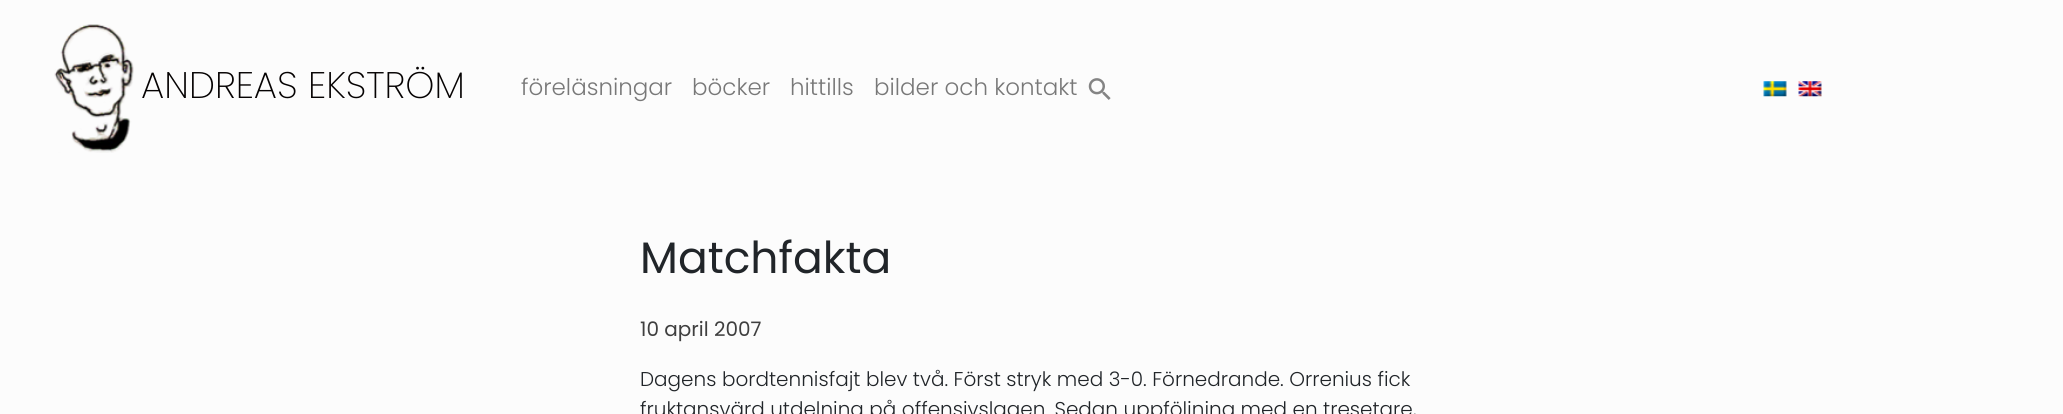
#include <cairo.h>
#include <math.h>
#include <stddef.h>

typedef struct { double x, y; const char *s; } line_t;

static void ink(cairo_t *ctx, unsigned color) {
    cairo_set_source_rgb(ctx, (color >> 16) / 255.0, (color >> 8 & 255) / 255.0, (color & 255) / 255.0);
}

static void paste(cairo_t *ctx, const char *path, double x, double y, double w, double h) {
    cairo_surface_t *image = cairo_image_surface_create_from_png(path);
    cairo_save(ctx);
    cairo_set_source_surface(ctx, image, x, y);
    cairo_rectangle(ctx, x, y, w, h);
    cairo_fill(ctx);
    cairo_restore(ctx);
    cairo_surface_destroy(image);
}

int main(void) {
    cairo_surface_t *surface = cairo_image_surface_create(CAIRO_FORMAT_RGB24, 2063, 414);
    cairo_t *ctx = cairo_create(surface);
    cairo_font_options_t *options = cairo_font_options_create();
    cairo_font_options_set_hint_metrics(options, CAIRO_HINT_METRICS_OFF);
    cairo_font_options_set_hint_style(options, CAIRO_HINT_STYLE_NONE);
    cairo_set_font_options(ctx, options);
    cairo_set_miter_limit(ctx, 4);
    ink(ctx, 0xFCFCFC);
    cairo_paint(ctx);
    paste(ctx, "media/1.png", 54, 24, 80, 129);
    cairo_select_font_face(ctx, "Poppins ExtraLight", CAIRO_FONT_SLANT_NORMAL, CAIRO_FONT_WEIGHT_NORMAL);
    cairo_set_font_size(ctx, 37);
    ink(ctx, 0x050202);
    cairo_move_to(ctx, 141, 98);
    cairo_show_text(ctx, "ANDREAS EKSTRÖM");
    cairo_select_font_face(ctx, "Poppins Light", CAIRO_FONT_SLANT_NORMAL, CAIRO_FONT_WEIGHT_NORMAL);
    cairo_set_font_size(ctx, 23);
    ink(ctx, 0x787878);
    {
        static const line_t items[] = {
            {521, 95, "föreläsningar"},
            {692, 95, "böcker"},
            {790, 95, "hittills"},
            {874, 95, "bilder och kontakt"},
        };
        for (size_t i = 0; i < sizeof items / sizeof *items; i++) {
            cairo_move_to(ctx, items[i].x, items[i].y);
            cairo_show_text(ctx, items[i].s);
        }
    }
    paste(ctx, "media/2.png", 1088, 78, 23, 22);
    paste(ctx, "media/3.png", 1763, 81, 24, 16);
    paste(ctx, "media/4.png", 1798, 81, 24, 16);
    cairo_select_font_face(ctx, "Poppins", CAIRO_FONT_SLANT_NORMAL, CAIRO_FONT_WEIGHT_NORMAL);
    cairo_set_font_size(ctx, 44);
    ink(ctx, 0x212529);
    cairo_move_to(ctx, 640, 273);
    cairo_show_text(ctx, "Matchfakta");
    cairo_set_font_size(ctx, 20);
    ink(ctx, 0x3F3F3F);
    cairo_move_to(ctx, 640, 336);
    cairo_show_text(ctx, "10 april 2007");
    cairo_select_font_face(ctx, "Poppins Light", CAIRO_FONT_SLANT_NORMAL, CAIRO_FONT_WEIGHT_NORMAL);
    ink(ctx, 0x212529);
    cairo_move_to(ctx, 640, 386);
    cairo_show_text(ctx, "Dagens bordtennisfajt blev två. Först stryk med 3-0. Förnedrande. Orrenius fick");
    cairo_move_to(ctx, 640, 416);
    cairo_show_text(ctx, "fruktansvärd utdelning på offensivslagen. Sedan uppföljning med en tresetare,");
    cairo_surface_write_to_png(surface, "image.png");
    cairo_font_options_destroy(options);
    cairo_destroy(ctx);
    cairo_surface_destroy(surface);
    return 0;
}
